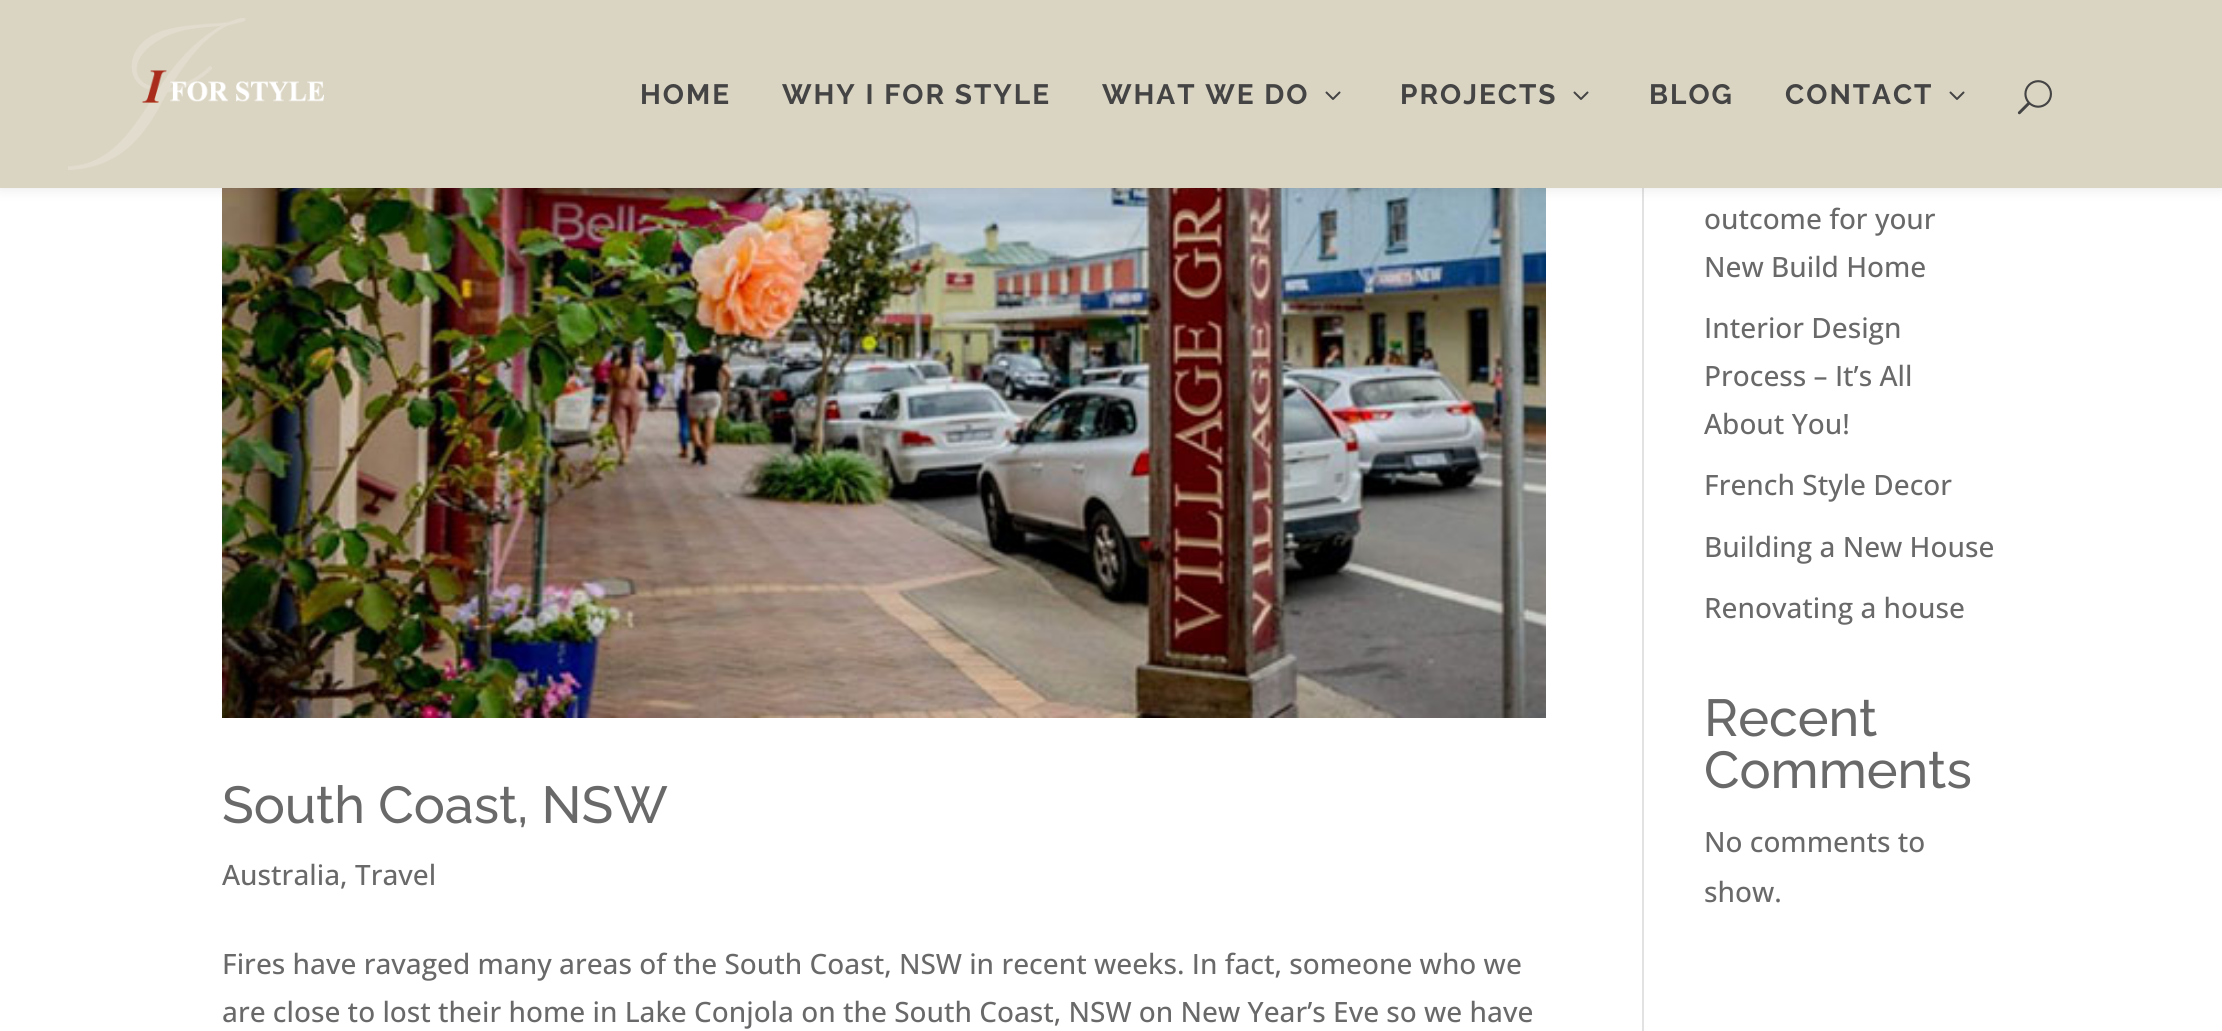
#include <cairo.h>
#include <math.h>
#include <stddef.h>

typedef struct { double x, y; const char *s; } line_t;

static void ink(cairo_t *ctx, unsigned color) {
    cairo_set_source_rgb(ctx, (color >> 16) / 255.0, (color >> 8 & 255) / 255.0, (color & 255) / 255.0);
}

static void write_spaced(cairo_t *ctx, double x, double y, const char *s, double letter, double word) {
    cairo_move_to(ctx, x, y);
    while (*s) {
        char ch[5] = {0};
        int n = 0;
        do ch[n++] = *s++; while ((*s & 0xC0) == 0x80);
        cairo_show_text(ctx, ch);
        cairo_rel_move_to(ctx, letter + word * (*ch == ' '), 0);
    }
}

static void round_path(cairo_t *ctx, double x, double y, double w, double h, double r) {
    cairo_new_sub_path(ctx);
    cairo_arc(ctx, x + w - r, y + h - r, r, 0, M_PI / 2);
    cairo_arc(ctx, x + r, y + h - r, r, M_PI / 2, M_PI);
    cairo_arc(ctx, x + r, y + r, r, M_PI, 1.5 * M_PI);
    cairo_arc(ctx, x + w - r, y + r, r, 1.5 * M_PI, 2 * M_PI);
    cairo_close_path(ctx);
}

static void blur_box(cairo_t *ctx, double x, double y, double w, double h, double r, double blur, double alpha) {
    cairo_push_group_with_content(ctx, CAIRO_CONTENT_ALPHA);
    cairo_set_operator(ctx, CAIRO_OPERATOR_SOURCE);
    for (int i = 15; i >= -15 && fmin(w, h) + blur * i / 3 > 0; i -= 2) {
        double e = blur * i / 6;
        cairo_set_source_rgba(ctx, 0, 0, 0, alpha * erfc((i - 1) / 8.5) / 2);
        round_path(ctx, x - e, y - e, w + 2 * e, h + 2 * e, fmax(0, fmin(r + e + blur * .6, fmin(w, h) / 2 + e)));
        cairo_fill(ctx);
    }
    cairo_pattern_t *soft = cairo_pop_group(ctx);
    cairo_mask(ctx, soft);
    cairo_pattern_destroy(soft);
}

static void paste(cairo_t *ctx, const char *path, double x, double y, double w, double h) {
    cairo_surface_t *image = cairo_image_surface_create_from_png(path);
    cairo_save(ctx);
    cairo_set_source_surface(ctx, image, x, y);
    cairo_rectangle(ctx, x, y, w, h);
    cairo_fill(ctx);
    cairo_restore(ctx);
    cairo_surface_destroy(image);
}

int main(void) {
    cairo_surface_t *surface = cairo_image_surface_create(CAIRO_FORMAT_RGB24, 2222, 1031);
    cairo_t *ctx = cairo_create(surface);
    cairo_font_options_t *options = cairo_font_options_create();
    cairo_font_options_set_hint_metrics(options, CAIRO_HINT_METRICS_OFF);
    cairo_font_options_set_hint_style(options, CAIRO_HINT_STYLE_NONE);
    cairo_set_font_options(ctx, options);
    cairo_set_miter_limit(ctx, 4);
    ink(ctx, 0xFFFFFF);
    cairo_paint(ctx);
    ink(ctx, 0xE2E2E2);
    cairo_rectangle(ctx, 1642, 188, 2, 843);
    cairo_fill(ctx);
    paste(ctx, "media/4.png", 222, 188, 1324, 530);
    ink(ctx, 0x000000);
    blur_box(ctx, 0, 0, 2222, 188, 0, 7, 0.1);
    ink(ctx, 0xDAD4C2);
    cairo_rectangle(ctx, 0, 0, 2222, 188);
    cairo_fill(ctx);
    paste(ctx, "media/1.png", 68, 18, 256, 152);
    cairo_select_font_face(ctx, "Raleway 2 Thin", CAIRO_FONT_SLANT_NORMAL, CAIRO_FONT_WEIGHT_NORMAL);
    cairo_set_font_size(ctx, 28);
    ink(ctx, 0x444444);
    {
        static const line_t items[] = {
            {640, 104, "HOME"},
            {782, 104, "WHY I FOR STYLE"},
            {1102, 104, "WHAT WE DO"},
        };
        for (size_t i = 0; i < sizeof items / sizeof *items; i++) {
            write_spaced(ctx, items[i].x, items[i].y, items[i].s, 2, 0);
        }
    }
    paste(ctx, "media/2.png", 1325, 91, 16, 9);
    write_spaced(ctx, 1400, 104, "PROJECTS", 2, 0);
    paste(ctx, "media/2.png", 1573, 91, 16, 9);
    write_spaced(ctx, 1649, 104, "BLOG", 2, 0);
    write_spaced(ctx, 1785, 104, "CONTACT", 2, 0);
    paste(ctx, "media/2.png", 1949, 91, 16, 9);
    paste(ctx, "media/3.png", 2017, 80, 35, 35);
    cairo_select_font_face(ctx, "Raleway Thin", CAIRO_FONT_SLANT_NORMAL, CAIRO_FONT_WEIGHT_NORMAL);
    cairo_set_font_size(ctx, 52);
    ink(ctx, 0x696969);
    cairo_move_to(ctx, 222, 823);
    cairo_show_text(ctx, "South Coast, NSW");
    cairo_select_font_face(ctx, "Open Sans Medium", CAIRO_FONT_SLANT_NORMAL, CAIRO_FONT_WEIGHT_NORMAL);
    cairo_set_font_size(ctx, 28);
    {
        static const line_t items[] = {
            {222, 885, "Australia"},
            {340, 885, ","},
            {355, 885, "Travel"},
            {222, 974, "Fires have ravaged many areas of the South Coast, NSW in recent weeks. In fact, someone who we"},
            {222, 1022, "are close to lost their home in Lake Conjola on the South Coast, NSW on New Year’s Eve so we have"},
            {1704, 229, "outcome for your"},
            {1704, 277, "New Build Home"},
            {1704, 338, "Interior Design"},
            {1704, 386, "Process – It’s All"},
            {1704, 434, "About You!"},
            {1704, 495, "French Style Decor"},
            {1704, 557, "Building a New House"},
            {1704, 618, "Renovating a house"},
        };
        for (size_t i = 0; i < sizeof items / sizeof *items; i++) {
            cairo_move_to(ctx, items[i].x, items[i].y);
            cairo_show_text(ctx, items[i].s);
        }
    }
    cairo_select_font_face(ctx, "Raleway Thin", CAIRO_FONT_SLANT_NORMAL, CAIRO_FONT_WEIGHT_NORMAL);
    cairo_set_font_size(ctx, 52);
    cairo_move_to(ctx, 1704, 736);
    cairo_show_text(ctx, "Recent");
    cairo_move_to(ctx, 1704, 788);
    cairo_show_text(ctx, "Comments");
    cairo_select_font_face(ctx, "Open Sans Medium", CAIRO_FONT_SLANT_NORMAL, CAIRO_FONT_WEIGHT_NORMAL);
    cairo_set_font_size(ctx, 28);
    cairo_move_to(ctx, 1704, 852);
    cairo_show_text(ctx, "No comments to");
    cairo_move_to(ctx, 1704, 902);
    cairo_show_text(ctx, "show.");
    cairo_surface_write_to_png(surface, "image.png");
    cairo_font_options_destroy(options);
    cairo_destroy(ctx);
    cairo_surface_destroy(surface);
    return 0;
}
